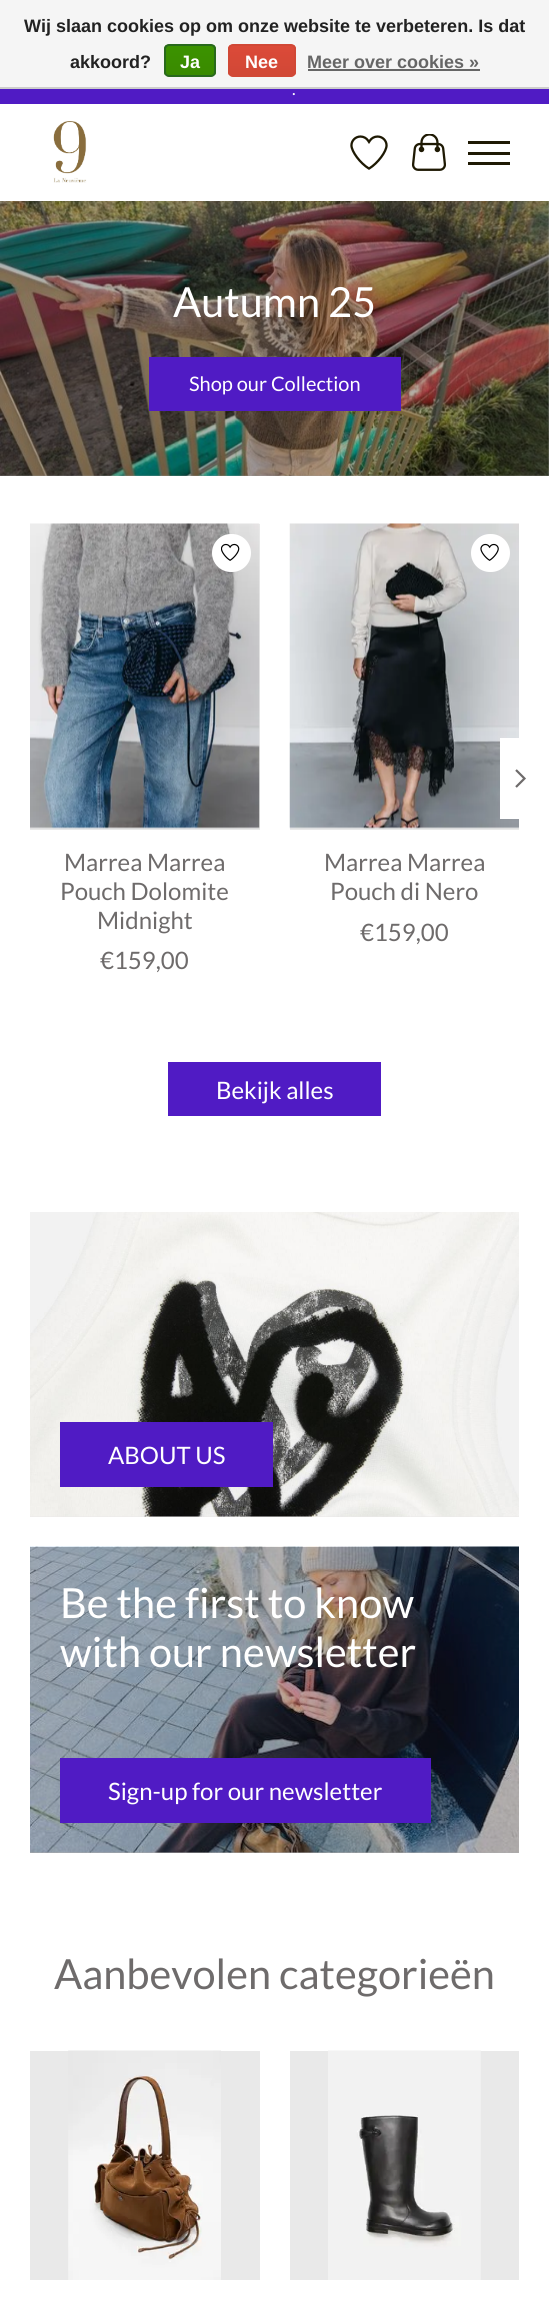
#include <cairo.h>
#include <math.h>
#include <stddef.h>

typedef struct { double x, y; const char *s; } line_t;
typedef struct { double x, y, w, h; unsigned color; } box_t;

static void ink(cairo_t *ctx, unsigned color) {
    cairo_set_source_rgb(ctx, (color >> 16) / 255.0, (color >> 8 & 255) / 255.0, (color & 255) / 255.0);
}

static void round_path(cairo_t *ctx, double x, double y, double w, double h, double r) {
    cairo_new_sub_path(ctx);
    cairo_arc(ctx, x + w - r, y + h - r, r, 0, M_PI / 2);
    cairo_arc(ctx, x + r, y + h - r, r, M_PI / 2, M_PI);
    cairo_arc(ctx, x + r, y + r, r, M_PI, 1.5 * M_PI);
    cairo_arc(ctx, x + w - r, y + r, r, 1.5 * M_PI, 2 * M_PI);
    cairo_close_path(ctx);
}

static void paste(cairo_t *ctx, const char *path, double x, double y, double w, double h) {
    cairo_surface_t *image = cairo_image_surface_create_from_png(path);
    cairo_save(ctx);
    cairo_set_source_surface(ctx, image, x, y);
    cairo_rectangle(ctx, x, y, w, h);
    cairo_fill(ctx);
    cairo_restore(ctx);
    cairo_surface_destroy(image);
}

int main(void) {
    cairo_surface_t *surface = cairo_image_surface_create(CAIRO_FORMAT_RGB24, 549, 2301);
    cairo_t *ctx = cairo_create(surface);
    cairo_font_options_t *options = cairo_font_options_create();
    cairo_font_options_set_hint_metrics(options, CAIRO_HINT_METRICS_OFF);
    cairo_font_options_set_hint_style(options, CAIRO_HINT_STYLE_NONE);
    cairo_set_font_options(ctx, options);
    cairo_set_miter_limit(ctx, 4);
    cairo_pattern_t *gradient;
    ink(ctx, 0xFFFFFF);
    cairo_paint(ctx);
    ink(ctx, 0xF5F5F5);
    cairo_rectangle(ctx, 0, 0, 549, 87);
    cairo_fill(ctx);
    ink(ctx, 0xCCCCCC);
    cairo_rectangle(ctx, 0, 87, 549, 2);
    cairo_fill(ctx);
    cairo_select_font_face(ctx, "Liberation Sans", CAIRO_FONT_SLANT_NORMAL, CAIRO_FONT_WEIGHT_BOLD);
    cairo_set_font_size(ctx, 18);
    ink(ctx, 0x222222);
    cairo_move_to(ctx, 24, 32);
    cairo_show_text(ctx, "Wij slaan cookies op om onze website te verbeteren. Is dat");
    cairo_move_to(ctx, 70, 68);
    cairo_show_text(ctx, "akkoord?");
    cairo_save(ctx);
    round_path(ctx, 164, 44, 52, 33, 5);
    cairo_clip(ctx);
    gradient = cairo_pattern_create_linear(190, 45, 190, 75);
    cairo_pattern_add_color_stop_rgba(gradient, 0, 0.235, 0.576, 0, 1);
    cairo_pattern_add_color_stop_rgba(gradient, 1, 0.224, 0.541, 0, 1);
    cairo_set_source(ctx, gradient);
    cairo_pattern_destroy(gradient);
    cairo_rectangle(ctx, 164, 45, 52, 30);
    cairo_fill(ctx);
    cairo_restore(ctx);
    round_path(ctx, 165, 45, 50, 31, 4);
    ink(ctx, 0x29691D);
    cairo_stroke(ctx);
    ink(ctx, 0xFFFFFF);
    cairo_move_to(ctx, 180, 68);
    cairo_show_text(ctx, "Ja");
    cairo_save(ctx);
    round_path(ctx, 228, 44, 68, 33, 5);
    cairo_clip(ctx);
    gradient = cairo_pattern_create_linear(262, 45, 262, 75);
    cairo_pattern_add_color_stop_rgba(gradient, 0, 0.863, 0.29, 0.22, 1);
    cairo_pattern_add_color_stop_rgba(gradient, 1, 0.82, 0.282, 0.212, 1);
    cairo_set_source(ctx, gradient);
    cairo_pattern_destroy(gradient);
    cairo_rectangle(ctx, 228, 45, 68, 30);
    cairo_fill(ctx);
    cairo_restore(ctx);
    round_path(ctx, 229, 45, 66, 31, 4);
    ink(ctx, 0xD14836);
    cairo_stroke(ctx);
    ink(ctx, 0xFFFFFF);
    cairo_move_to(ctx, 245, 68);
    cairo_show_text(ctx, "Nee");
    ink(ctx, 0x666666);
    cairo_move_to(ctx, 307, 68);
    cairo_show_text(ctx, "Meer over cookies »");
    cairo_rectangle(ctx, 308, 69, 172, 2);
    cairo_fill(ctx);
    ink(ctx, 0x501BC4);
    cairo_rectangle(ctx, 0, 89, 549, 15);
    cairo_fill(ctx);
    cairo_select_font_face(ctx, "Lato", CAIRO_FONT_SLANT_NORMAL, CAIRO_FONT_WEIGHT_NORMAL);
    cairo_set_font_size(ctx, 17);
    ink(ctx, 0xFFFFFF);
    cairo_move_to(ctx, 292, 95);
    cairo_show_text(ctx, ".");
    paste(ctx, "media/1.png", 53, 121, 34, 62);
    paste(ctx, "media/2.png", 350, 135, 38, 35);
    paste(ctx, "media/3.png", 411, 134, 35, 37);
    {
        static const box_t items[] = {
            {468, 152, 42, 3, 0x1E1903},
            {468, 141, 42, 3, 0x1E1903},
            {468, 162, 42, 3, 0x1E1903},
            {0, 201, 549, 275, 0xA4A3A3},
        };
        for (size_t i = 0; i < sizeof items / sizeof *items; i++) {
            ink(ctx, items[i].color);
            cairo_rectangle(ctx, items[i].x, items[i].y, items[i].w, items[i].h);
            cairo_fill(ctx);
        }
    }
    paste(ctx, "media/4.png", 0, 201, 549, 275);
    cairo_set_font_size(ctx, 41.5);
    ink(ctx, 0xFFFFFF);
    cairo_move_to(ctx, 173, 317);
    cairo_show_text(ctx, "Autumn 25");
    ink(ctx, 0x501BC4);
    cairo_rectangle(ctx, 149, 357, 252, 54);
    cairo_fill(ctx);
    cairo_set_font_size(ctx, 20);
    ink(ctx, 0xFFFFFF);
    cairo_move_to(ctx, 189, 391);
    cairo_show_text(ctx, "Shop our Collection");
    ink(ctx, 0xE9E9E9);
    cairo_rectangle(ctx, 290, 827, 229, 3);
    cairo_fill(ctx);
    paste(ctx, "media/7.png", 289, 523, 230, 306);
    ink(ctx, 0xFFFFFF);
    cairo_rectangle(ctx, 500, 738, 19, 81);
    cairo_fill(ctx);
    cairo_new_path(ctx);
    cairo_move_to(ctx, 516, 787);
    cairo_line_to(ctx, 524.5, 778.5);
    cairo_line_to(ctx, 516, 770);
    ink(ctx, 0x6E6B6B);
    cairo_set_line_width(ctx, 2.2);
    cairo_stroke(ctx);
    ink(ctx, 0xE9E9E9);
    cairo_rectangle(ctx, 30, 524, 230, 306);
    cairo_fill(ctx);
    paste(ctx, "media/5.png", 30, 523, 230, 306);
    ink(ctx, 0xFFFFFF);
    round_path(ctx, 212, 534, 39, 38, 19);
    cairo_fill(ctx);
    paste(ctx, "media/6.png", 221, 543, 19, 18);
    cairo_set_font_size(ctx, 24);
    ink(ctx, 0x6E6B6B);
    {
        static const line_t items[] = {
            {64, 871, "Marrea Marrea"},
            {60, 900, "Pouch Dolomite"},
            {97, 929, "Midnight"},
            {100, 969, "€159,00"},
        };
        for (size_t i = 0; i < sizeof items / sizeof *items; i++) {
            cairo_move_to(ctx, items[i].x, items[i].y);
            cairo_show_text(ctx, items[i].s);
        }
    }
    ink(ctx, 0xFFFFFF);
    round_path(ctx, 471, 534, 39, 38, 19);
    cairo_fill(ctx);
    paste(ctx, "media/8.png", 480, 543, 19, 18);
    ink(ctx, 0x6E6B6B);
    {
        static const line_t items[] = {
            {324, 871, "Marrea Marrea"},
            {330, 900, "Pouch di Nero"},
            {360, 941, "€159,00"},
        };
        for (size_t i = 0; i < sizeof items / sizeof *items; i++) {
            cairo_move_to(ctx, items[i].x, items[i].y);
            cairo_show_text(ctx, items[i].s);
        }
    }
    ink(ctx, 0x501BC4);
    cairo_rectangle(ctx, 168, 1062, 213, 54);
    cairo_fill(ctx);
    ink(ctx, 0xFFFFFF);
    cairo_move_to(ctx, 216, 1099);
    cairo_show_text(ctx, "Bekijk alles");
    ink(ctx, 0xEAE9E9);
    cairo_rectangle(ctx, 30, 1516, 489, 1);
    cairo_fill(ctx);
    paste(ctx, "media/9.png", 30, 1212, 489, 305);
    ink(ctx, 0x501BC4);
    cairo_rectangle(ctx, 60, 1422, 213, 65);
    cairo_fill(ctx);
    ink(ctx, 0xFFFFFF);
    cairo_move_to(ctx, 108, 1464);
    cairo_show_text(ctx, "ABOUT US");
    ink(ctx, 0xACACAD);
    cairo_rectangle(ctx, 30, 1852, 489, 1);
    cairo_fill(ctx);
    paste(ctx, "media/10.png", 30, 1546, 489, 307);
    cairo_set_font_size(ctx, 41.5);
    ink(ctx, 0xFFFFFF);
    cairo_move_to(ctx, 60, 1618);
    cairo_show_text(ctx, "Be the first to know");
    cairo_move_to(ctx, 60, 1667);
    cairo_show_text(ctx, "with our newsletter");
    ink(ctx, 0x501BC4);
    cairo_rectangle(ctx, 60, 1758, 371, 65);
    cairo_fill(ctx);
    cairo_set_font_size(ctx, 24);
    ink(ctx, 0xFFFFFF);
    cairo_move_to(ctx, 108, 1800);
    cairo_show_text(ctx, "Sign-up for our newsletter");
    cairo_set_font_size(ctx, 41.5);
    ink(ctx, 0x6E6B6B);
    cairo_move_to(ctx, 54, 1989);
    cairo_show_text(ctx, "Aanbevolen categorieën");
    ink(ctx, 0xE9E9E9);
    cairo_rectangle(ctx, 30, 2051, 230, 229);
    cairo_fill(ctx);
    paste(ctx, "media/11.png", 68, 2050, 153, 230);
    cairo_rectangle(ctx, 290, 2051, 229, 229);
    cairo_fill(ctx);
    paste(ctx, "media/12.png", 328, 2050, 153, 230);
    cairo_surface_write_to_png(surface, "image.png");
    cairo_font_options_destroy(options);
    cairo_destroy(ctx);
    cairo_surface_destroy(surface);
    return 0;
}
